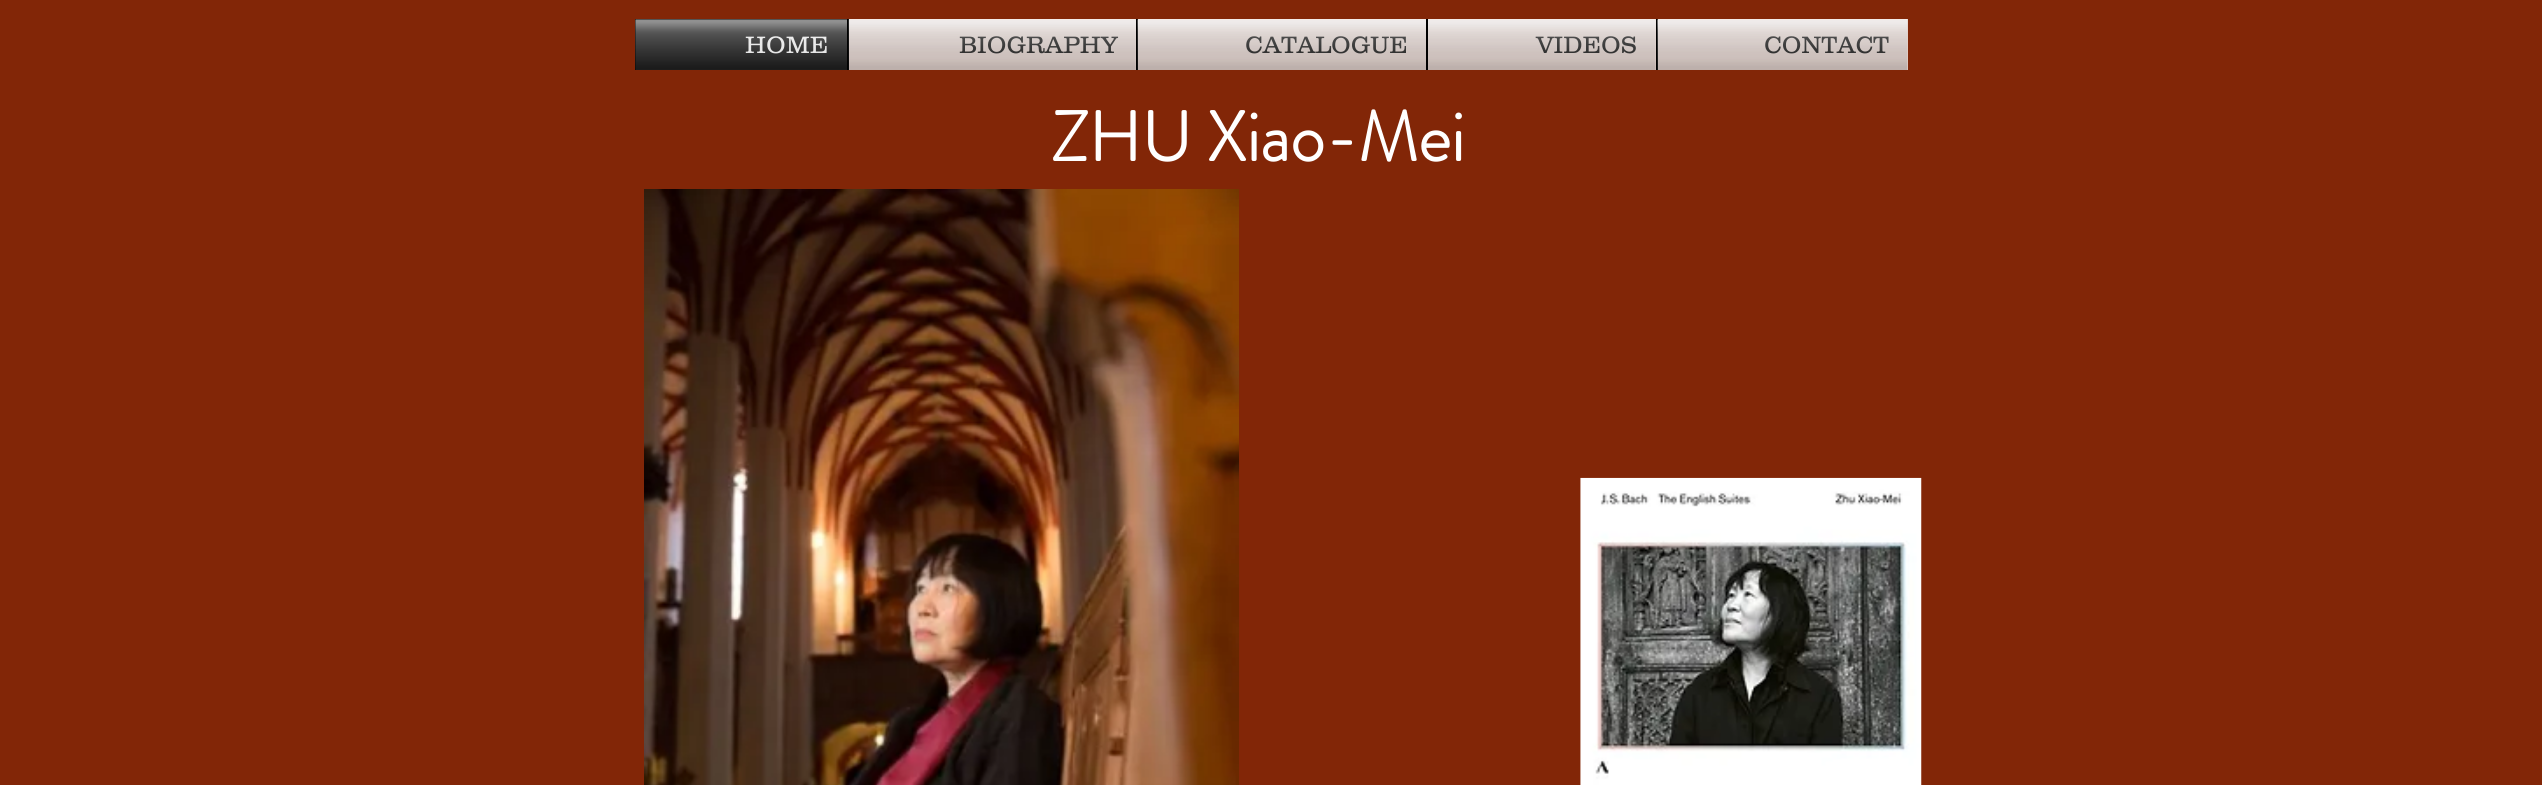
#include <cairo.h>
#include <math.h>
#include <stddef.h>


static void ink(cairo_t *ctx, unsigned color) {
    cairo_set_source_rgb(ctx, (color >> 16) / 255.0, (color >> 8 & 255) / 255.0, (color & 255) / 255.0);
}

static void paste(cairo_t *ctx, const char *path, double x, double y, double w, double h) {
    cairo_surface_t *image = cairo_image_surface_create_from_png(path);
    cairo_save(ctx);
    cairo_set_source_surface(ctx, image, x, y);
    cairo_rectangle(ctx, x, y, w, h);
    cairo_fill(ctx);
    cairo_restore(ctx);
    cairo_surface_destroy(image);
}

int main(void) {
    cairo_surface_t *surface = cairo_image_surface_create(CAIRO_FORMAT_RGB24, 2542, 785);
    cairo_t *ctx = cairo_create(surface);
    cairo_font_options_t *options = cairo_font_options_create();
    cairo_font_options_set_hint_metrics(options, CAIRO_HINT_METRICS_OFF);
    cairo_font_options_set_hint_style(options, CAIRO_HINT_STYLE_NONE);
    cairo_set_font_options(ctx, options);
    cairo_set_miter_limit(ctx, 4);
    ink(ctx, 0x822607);
    cairo_paint(ctx);
    ink(ctx, 0xC19383);
    cairo_rectangle(ctx, 849, 19, 1059, 51);
    cairo_fill(ctx);
    paste(ctx, "media/1.png", 849, 19, 1059, 51);
    paste(ctx, "media/2.png", 849, 20, 1059, 50);
    ink(ctx, 0x000000);
    cairo_rectangle(ctx, 635, 19, 214, 51);
    cairo_fill(ctx);
    cairo_select_font_face(ctx, "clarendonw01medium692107 Light", CAIRO_FONT_SLANT_NORMAL, CAIRO_FONT_WEIGHT_NORMAL);
    cairo_set_font_size(ctx, 24.5);
    ink(ctx, 0xFFFFFF);
    cairo_move_to(ctx, 745, 53);
    cairo_show_text(ctx, "HOME");
    paste(ctx, "media/3.png", 635, 19, 212, 51);
    paste(ctx, "media/4.png", 636, 20, 211, 49);
    cairo_set_source_rgba(ctx, 1, 1, 1, 0.5);
    cairo_rectangle(ctx, 849, 19, 287, 51);
    cairo_fill(ctx);
    ink(ctx, 0x000000);
    cairo_move_to(ctx, 959, 53);
    cairo_show_text(ctx, "BIOGRAPHY");
    paste(ctx, "media/5.png", 848, 19, 288, 51);
    paste(ctx, "media/6.png", 849, 20, 287, 50);
    cairo_set_source_rgba(ctx, 1, 1, 1, 0.5);
    cairo_rectangle(ctx, 1138, 19, 288, 51);
    cairo_fill(ctx);
    ink(ctx, 0x000000);
    cairo_rectangle(ctx, 1136, 19, 2, 51);
    cairo_fill(ctx);
    cairo_move_to(ctx, 1245, 53);
    cairo_show_text(ctx, "CATALOGUE");
    paste(ctx, "media/7.png", 1137, 19, 289, 51);
    paste(ctx, "media/8.png", 1138, 20, 288, 50);
    cairo_set_source_rgba(ctx, 1, 1, 1, 0.5);
    cairo_rectangle(ctx, 1428, 19, 228, 51);
    cairo_fill(ctx);
    ink(ctx, 0x000000);
    cairo_rectangle(ctx, 1426, 19, 2, 51);
    cairo_fill(ctx);
    cairo_move_to(ctx, 1536, 53);
    cairo_show_text(ctx, "VIDEOS");
    paste(ctx, "media/9.png", 1428, 19, 228, 51);
    paste(ctx, "media/10.png", 1428, 20, 228, 50);
    cairo_set_source_rgba(ctx, 1, 1, 1, 0.5);
    cairo_rectangle(ctx, 1658, 19, 250, 51);
    cairo_fill(ctx);
    ink(ctx, 0x000000);
    cairo_rectangle(ctx, 1656, 19, 2, 51);
    cairo_fill(ctx);
    cairo_move_to(ctx, 1764, 53);
    cairo_show_text(ctx, "CONTACT");
    paste(ctx, "media/11.png", 1657, 19, 251, 51);
    paste(ctx, "media/12.png", 1658, 20, 250, 50);
    cairo_select_font_face(ctx, "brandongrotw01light", CAIRO_FONT_SLANT_NORMAL, CAIRO_FONT_WEIGHT_BOLD);
    cairo_set_font_size(ctx, 70);
    ink(ctx, 0xFFFFFF);
    cairo_move_to(ctx, 1051, 161);
    cairo_show_text(ctx, "ZHU Xiao-Mei");
    paste(ctx, "media/13.png", 644, 189, 595, 596);
    paste(ctx, "media/14.png", 1580, 477, 342, 308);
    cairo_surface_write_to_png(surface, "image.png");
    cairo_font_options_destroy(options);
    cairo_destroy(ctx);
    cairo_surface_destroy(surface);
    return 0;
}
